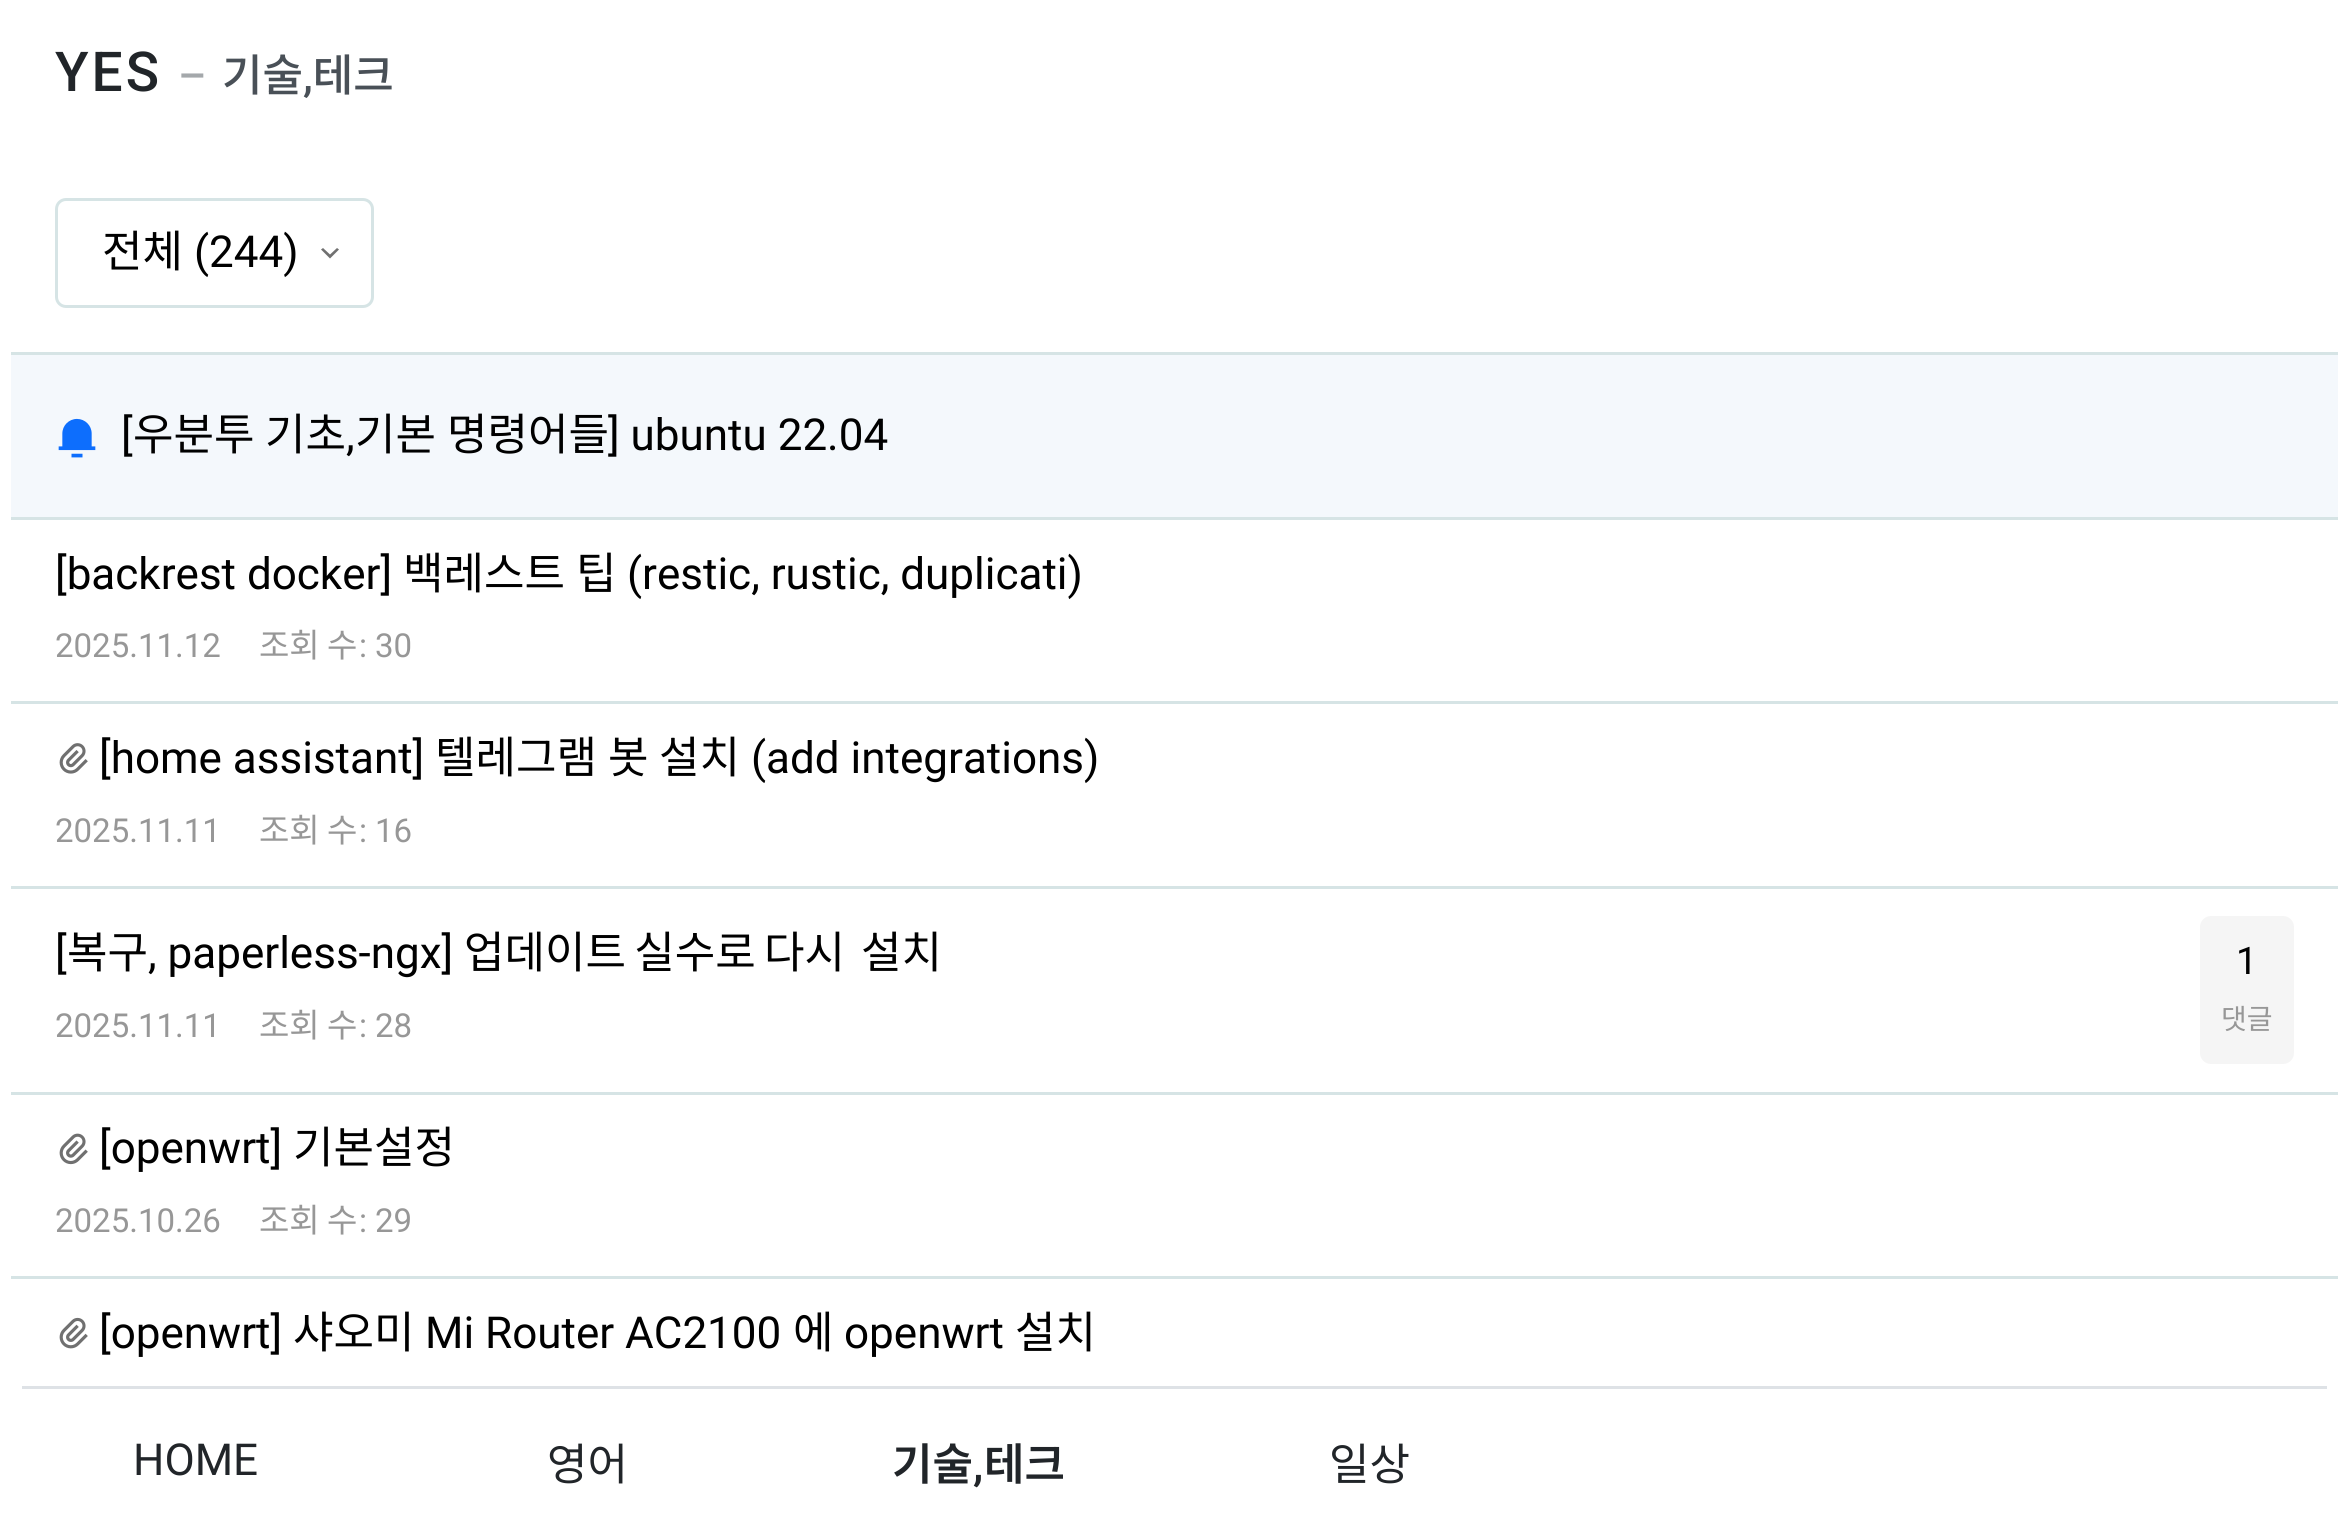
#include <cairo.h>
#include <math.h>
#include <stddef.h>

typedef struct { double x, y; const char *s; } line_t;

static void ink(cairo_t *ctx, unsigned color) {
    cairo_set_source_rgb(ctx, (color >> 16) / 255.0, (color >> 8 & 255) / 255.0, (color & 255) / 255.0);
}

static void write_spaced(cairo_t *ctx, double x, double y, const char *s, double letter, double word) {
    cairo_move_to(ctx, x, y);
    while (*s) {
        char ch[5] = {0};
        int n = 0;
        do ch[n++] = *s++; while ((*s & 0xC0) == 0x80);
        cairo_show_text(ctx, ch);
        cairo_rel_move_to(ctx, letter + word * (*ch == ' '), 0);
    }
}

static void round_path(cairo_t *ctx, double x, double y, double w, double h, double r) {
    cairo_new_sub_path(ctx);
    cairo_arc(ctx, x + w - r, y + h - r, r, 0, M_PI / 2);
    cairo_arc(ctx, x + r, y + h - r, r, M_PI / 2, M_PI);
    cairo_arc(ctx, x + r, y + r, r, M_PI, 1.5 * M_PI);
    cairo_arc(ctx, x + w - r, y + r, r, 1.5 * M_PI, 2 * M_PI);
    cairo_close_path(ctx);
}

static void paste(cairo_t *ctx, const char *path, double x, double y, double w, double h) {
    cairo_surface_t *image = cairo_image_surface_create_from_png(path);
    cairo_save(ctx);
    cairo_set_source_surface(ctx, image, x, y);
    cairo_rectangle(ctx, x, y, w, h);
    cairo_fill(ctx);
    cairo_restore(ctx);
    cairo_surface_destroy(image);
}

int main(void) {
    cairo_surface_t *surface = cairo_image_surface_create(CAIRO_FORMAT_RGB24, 2347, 1530);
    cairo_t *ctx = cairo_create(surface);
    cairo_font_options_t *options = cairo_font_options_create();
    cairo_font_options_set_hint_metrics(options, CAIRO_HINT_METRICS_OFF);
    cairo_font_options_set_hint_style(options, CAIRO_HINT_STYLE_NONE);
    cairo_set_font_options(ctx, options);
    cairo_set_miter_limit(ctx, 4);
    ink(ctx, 0xFFFFFF);
    cairo_paint(ctx);
    cairo_select_font_face(ctx, "Roboto Medium", CAIRO_FONT_SLANT_NORMAL, CAIRO_FONT_WEIGHT_NORMAL);
    cairo_set_font_size(ctx, 55);
    ink(ctx, 0x212529);
    write_spaced(ctx, 55, 91, "YES", 3, 0);
    cairo_set_font_size(ctx, 44);
    ink(ctx, 0xA4A8AB);
    cairo_move_to(ctx, 178, 91);
    cairo_show_text(ctx, "–");
    cairo_select_font_face(ctx, "Noto Sans KR Medium", CAIRO_FONT_SLANT_NORMAL, CAIRO_FONT_WEIGHT_NORMAL);
    ink(ctx, 0x495057);
    cairo_move_to(ctx, 222, 91);
    cairo_show_text(ctx, "기술 테크");
    cairo_select_font_face(ctx, "Roboto Medium", CAIRO_FONT_SLANT_NORMAL, CAIRO_FONT_WEIGHT_NORMAL);
    cairo_move_to(ctx, 303, 91);
    cairo_show_text(ctx, ",");
    ink(ctx, 0xDEE2E6);
    cairo_rectangle(ctx, 22, 1386, 2305, 3);
    cairo_fill(ctx);
    cairo_select_font_face(ctx, "Roboto", CAIRO_FONT_SLANT_NORMAL, CAIRO_FONT_WEIGHT_NORMAL);
    ink(ctx, 0x212529);
    cairo_move_to(ctx, 133, 1475);
    cairo_show_text(ctx, "HOME");
    cairo_select_font_face(ctx, "Noto Sans KR", CAIRO_FONT_SLANT_NORMAL, CAIRO_FONT_WEIGHT_NORMAL);
    cairo_move_to(ctx, 547, 1480);
    cairo_show_text(ctx, "영어");
    cairo_select_font_face(ctx, "Noto Sans KR SemiBold", CAIRO_FONT_SLANT_NORMAL, CAIRO_FONT_WEIGHT_NORMAL);
    cairo_move_to(ctx, 892, 1480);
    cairo_show_text(ctx, "기술");
    cairo_select_font_face(ctx, "Roboto SemiBold", CAIRO_FONT_SLANT_NORMAL, CAIRO_FONT_WEIGHT_NORMAL);
    cairo_move_to(ctx, 973, 1480);
    cairo_show_text(ctx, ",");
    cairo_select_font_face(ctx, "Noto Sans KR SemiBold", CAIRO_FONT_SLANT_NORMAL, CAIRO_FONT_WEIGHT_NORMAL);
    cairo_move_to(ctx, 984, 1480);
    cairo_show_text(ctx, "테크");
    cairo_select_font_face(ctx, "Noto Sans KR", CAIRO_FONT_SLANT_NORMAL, CAIRO_FONT_WEIGHT_NORMAL);
    cairo_move_to(ctx, 1329, 1480);
    cairo_show_text(ctx, "일상");
    round_path(ctx, 56.5, 199.5, 316, 107, 9.5);
    ink(ctx, 0xD6E4E5);
    cairo_set_line_width(ctx, 3);
    cairo_stroke(ctx);
    ink(ctx, 0x000000);
    cairo_move_to(ctx, 102, 267);
    cairo_show_text(ctx, "전체");
    cairo_select_font_face(ctx, "Roboto", CAIRO_FONT_SLANT_NORMAL, CAIRO_FONT_WEIGHT_NORMAL);
    cairo_move_to(ctx, 194, 267);
    cairo_show_text(ctx, "(244)");
    ink(ctx, 0x707070);
    cairo_new_path(ctx);
    cairo_move_to(ctx, 330, 254.5);
    cairo_line_to(ctx, 337, 248);
    cairo_line_to(ctx, 339, 249.5);
    cairo_line_to(ctx, 330, 258.5);
    cairo_line_to(ctx, 321, 249.5);
    cairo_line_to(ctx, 323, 248);
    cairo_close_path(ctx);
    cairo_fill(ctx);
    ink(ctx, 0xF4F8FC);
    cairo_rectangle(ctx, 11, 355, 2327, 162);
    cairo_fill(ctx);
    ink(ctx, 0xD6E4E5);
    cairo_rectangle(ctx, 11, 352, 2327, 3);
    cairo_fill(ctx);
    paste(ctx, "media/1.png", 58, 418, 38, 40);
    ink(ctx, 0x000000);
    cairo_move_to(ctx, 121, 450);
    cairo_show_text(ctx, "[");
    cairo_select_font_face(ctx, "Noto Sans KR", CAIRO_FONT_SLANT_NORMAL, CAIRO_FONT_WEIGHT_NORMAL);
    cairo_move_to(ctx, 133, 450);
    cairo_show_text(ctx, "우분투");
    cairo_move_to(ctx, 265, 450);
    cairo_show_text(ctx, "기초");
    cairo_select_font_face(ctx, "Roboto", CAIRO_FONT_SLANT_NORMAL, CAIRO_FONT_WEIGHT_NORMAL);
    cairo_move_to(ctx, 346, 450);
    cairo_show_text(ctx, ",");
    cairo_select_font_face(ctx, "Noto Sans KR", CAIRO_FONT_SLANT_NORMAL, CAIRO_FONT_WEIGHT_NORMAL);
    cairo_move_to(ctx, 355, 450);
    cairo_show_text(ctx, "기본");
    cairo_move_to(ctx, 447, 450);
    cairo_show_text(ctx, "명령어들");
    cairo_select_font_face(ctx, "Roboto", CAIRO_FONT_SLANT_NORMAL, CAIRO_FONT_WEIGHT_NORMAL);
    cairo_move_to(ctx, 608, 450);
    cairo_show_text(ctx, "] ubuntu 22.04");
    ink(ctx, 0xD6E4E5);
    cairo_rectangle(ctx, 11, 517, 2327, 3);
    cairo_fill(ctx);
    ink(ctx, 0x000000);
    cairo_move_to(ctx, 55, 589);
    cairo_show_text(ctx, "[backrest docker]");
    cairo_select_font_face(ctx, "Noto Sans KR", CAIRO_FONT_SLANT_NORMAL, CAIRO_FONT_WEIGHT_NORMAL);
    cairo_move_to(ctx, 403, 589);
    cairo_show_text(ctx, "백레스트");
    cairo_move_to(ctx, 576, 589);
    cairo_show_text(ctx, "팁");
    cairo_select_font_face(ctx, "Roboto", CAIRO_FONT_SLANT_NORMAL, CAIRO_FONT_WEIGHT_NORMAL);
    cairo_move_to(ctx, 627, 589);
    cairo_show_text(ctx, "(restic, rustic, duplicati)");
    cairo_set_font_size(ctx, 33);
    ink(ctx, 0x979797);
    cairo_move_to(ctx, 55, 657);
    cairo_show_text(ctx, "2025.11.12");
    cairo_select_font_face(ctx, "Noto Sans KR", CAIRO_FONT_SLANT_NORMAL, CAIRO_FONT_WEIGHT_NORMAL);
    cairo_move_to(ctx, 259, 657);
    cairo_show_text(ctx, "조회 수");
    cairo_select_font_face(ctx, "Roboto", CAIRO_FONT_SLANT_NORMAL, CAIRO_FONT_WEIGHT_NORMAL);
    cairo_move_to(ctx, 359, 657);
    cairo_show_text(ctx, ":");
    cairo_move_to(ctx, 375, 657);
    cairo_show_text(ctx, "30");
    ink(ctx, 0xD6E4E5);
    cairo_rectangle(ctx, 11, 701, 2327, 3);
    cairo_fill(ctx);
    paste(ctx, "media/2.png", 59, 743, 29, 31);
    cairo_set_font_size(ctx, 44);
    ink(ctx, 0x000000);
    cairo_move_to(ctx, 99, 773);
    cairo_show_text(ctx, "[home assistant]");
    cairo_select_font_face(ctx, "Noto Sans KR", CAIRO_FONT_SLANT_NORMAL, CAIRO_FONT_WEIGHT_NORMAL);
    {
        static const line_t items[] = {
            {435, 773, "텔레그램"},
            {608, 773, "봇"},
            {659, 773, "설치"},
        };
        for (size_t i = 0; i < sizeof items / sizeof *items; i++) {
            cairo_move_to(ctx, items[i].x, items[i].y);
            cairo_show_text(ctx, items[i].s);
        }
    }
    cairo_select_font_face(ctx, "Roboto", CAIRO_FONT_SLANT_NORMAL, CAIRO_FONT_WEIGHT_NORMAL);
    cairo_move_to(ctx, 751, 773);
    cairo_show_text(ctx, "(add integrations)");
    cairo_set_font_size(ctx, 33);
    ink(ctx, 0x979797);
    cairo_move_to(ctx, 55, 842);
    cairo_show_text(ctx, "2025.11.11");
    cairo_select_font_face(ctx, "Noto Sans KR", CAIRO_FONT_SLANT_NORMAL, CAIRO_FONT_WEIGHT_NORMAL);
    cairo_move_to(ctx, 259, 842);
    cairo_show_text(ctx, "조회 수");
    cairo_select_font_face(ctx, "Roboto", CAIRO_FONT_SLANT_NORMAL, CAIRO_FONT_WEIGHT_NORMAL);
    cairo_move_to(ctx, 359, 842);
    cairo_show_text(ctx, ":");
    cairo_move_to(ctx, 375, 842);
    cairo_show_text(ctx, "16");
    ink(ctx, 0xD6E4E5);
    cairo_rectangle(ctx, 11, 886, 2327, 3);
    cairo_fill(ctx);
    cairo_set_font_size(ctx, 44);
    ink(ctx, 0x000000);
    cairo_move_to(ctx, 55, 968);
    cairo_show_text(ctx, "[");
    cairo_select_font_face(ctx, "Noto Sans KR", CAIRO_FONT_SLANT_NORMAL, CAIRO_FONT_WEIGHT_NORMAL);
    cairo_move_to(ctx, 67, 968);
    cairo_show_text(ctx, "복구");
    cairo_select_font_face(ctx, "Roboto", CAIRO_FONT_SLANT_NORMAL, CAIRO_FONT_WEIGHT_NORMAL);
    cairo_move_to(ctx, 148, 968);
    cairo_show_text(ctx, ", paperless-ngx]");
    cairo_select_font_face(ctx, "Noto Sans KR", CAIRO_FONT_SLANT_NORMAL, CAIRO_FONT_WEIGHT_NORMAL);
    write_spaced(ctx, 464, 968, "업데이트 실수로 다시", 0, -1.5);
    write_spaced(ctx, 861, 968, "설치", 0, -1.5);
    cairo_select_font_face(ctx, "Roboto", CAIRO_FONT_SLANT_NORMAL, CAIRO_FONT_WEIGHT_NORMAL);
    cairo_set_font_size(ctx, 33);
    ink(ctx, 0x979797);
    cairo_move_to(ctx, 55, 1037);
    cairo_show_text(ctx, "2025.11.11");
    cairo_select_font_face(ctx, "Noto Sans KR", CAIRO_FONT_SLANT_NORMAL, CAIRO_FONT_WEIGHT_NORMAL);
    cairo_move_to(ctx, 259, 1037);
    cairo_show_text(ctx, "조회 수");
    cairo_select_font_face(ctx, "Roboto", CAIRO_FONT_SLANT_NORMAL, CAIRO_FONT_WEIGHT_NORMAL);
    cairo_move_to(ctx, 359, 1037);
    cairo_show_text(ctx, ":");
    cairo_move_to(ctx, 375, 1037);
    cairo_show_text(ctx, "28");
    ink(ctx, 0xF5F5F5);
    round_path(ctx, 2200, 916, 94, 148, 11);
    cairo_fill(ctx);
    cairo_set_font_size(ctx, 38);
    ink(ctx, 0x000000);
    cairo_move_to(ctx, 2236, 974);
    cairo_show_text(ctx, "1");
    cairo_select_font_face(ctx, "Noto Sans KR", CAIRO_FONT_SLANT_NORMAL, CAIRO_FONT_WEIGHT_NORMAL);
    cairo_set_font_size(ctx, 28);
    ink(ctx, 0x979797);
    cairo_move_to(ctx, 2221, 1029);
    cairo_show_text(ctx, "댓글");
    ink(ctx, 0xD6E4E5);
    cairo_rectangle(ctx, 11, 1092, 2327, 3);
    cairo_fill(ctx);
    paste(ctx, "media/3.png", 59, 1133, 29, 32);
    cairo_select_font_face(ctx, "Roboto", CAIRO_FONT_SLANT_NORMAL, CAIRO_FONT_WEIGHT_NORMAL);
    cairo_set_font_size(ctx, 44);
    ink(ctx, 0x000000);
    cairo_move_to(ctx, 99, 1163);
    cairo_show_text(ctx, "[openwrt]");
    cairo_select_font_face(ctx, "Noto Sans KR", CAIRO_FONT_SLANT_NORMAL, CAIRO_FONT_WEIGHT_NORMAL);
    cairo_move_to(ctx, 293, 1163);
    cairo_show_text(ctx, "기본설정");
    cairo_select_font_face(ctx, "Roboto", CAIRO_FONT_SLANT_NORMAL, CAIRO_FONT_WEIGHT_NORMAL);
    cairo_set_font_size(ctx, 33);
    ink(ctx, 0x979797);
    cairo_move_to(ctx, 55, 1232);
    cairo_show_text(ctx, "2025.10.26");
    cairo_select_font_face(ctx, "Noto Sans KR", CAIRO_FONT_SLANT_NORMAL, CAIRO_FONT_WEIGHT_NORMAL);
    cairo_move_to(ctx, 259, 1232);
    cairo_show_text(ctx, "조회 수");
    cairo_select_font_face(ctx, "Roboto", CAIRO_FONT_SLANT_NORMAL, CAIRO_FONT_WEIGHT_NORMAL);
    cairo_move_to(ctx, 359, 1232);
    cairo_show_text(ctx, ":");
    cairo_move_to(ctx, 375, 1232);
    cairo_show_text(ctx, "29");
    ink(ctx, 0xD6E4E5);
    cairo_rectangle(ctx, 11, 1276, 2327, 3);
    cairo_fill(ctx);
    paste(ctx, "media/4.png", 59, 1317, 29, 32);
    cairo_set_font_size(ctx, 44);
    ink(ctx, 0x000000);
    cairo_move_to(ctx, 99, 1348);
    cairo_show_text(ctx, "[openwrt]");
    cairo_select_font_face(ctx, "Noto Sans KR", CAIRO_FONT_SLANT_NORMAL, CAIRO_FONT_WEIGHT_NORMAL);
    cairo_move_to(ctx, 293, 1348);
    cairo_show_text(ctx, "샤오미");
    cairo_select_font_face(ctx, "Roboto", CAIRO_FONT_SLANT_NORMAL, CAIRO_FONT_WEIGHT_NORMAL);
    cairo_move_to(ctx, 425, 1348);
    cairo_show_text(ctx, "Mi Router AC2100");
    cairo_select_font_face(ctx, "Noto Sans KR", CAIRO_FONT_SLANT_NORMAL, CAIRO_FONT_WEIGHT_NORMAL);
    cairo_move_to(ctx, 793, 1348);
    cairo_show_text(ctx, "에");
    cairo_select_font_face(ctx, "Roboto", CAIRO_FONT_SLANT_NORMAL, CAIRO_FONT_WEIGHT_NORMAL);
    cairo_move_to(ctx, 844, 1348);
    cairo_show_text(ctx, "openwrt");
    cairo_select_font_face(ctx, "Noto Sans KR", CAIRO_FONT_SLANT_NORMAL, CAIRO_FONT_WEIGHT_NORMAL);
    cairo_move_to(ctx, 1015, 1348);
    cairo_show_text(ctx, "설치");
    cairo_surface_write_to_png(surface, "image.png");
    cairo_font_options_destroy(options);
    cairo_destroy(ctx);
    cairo_surface_destroy(surface);
    return 0;
}
